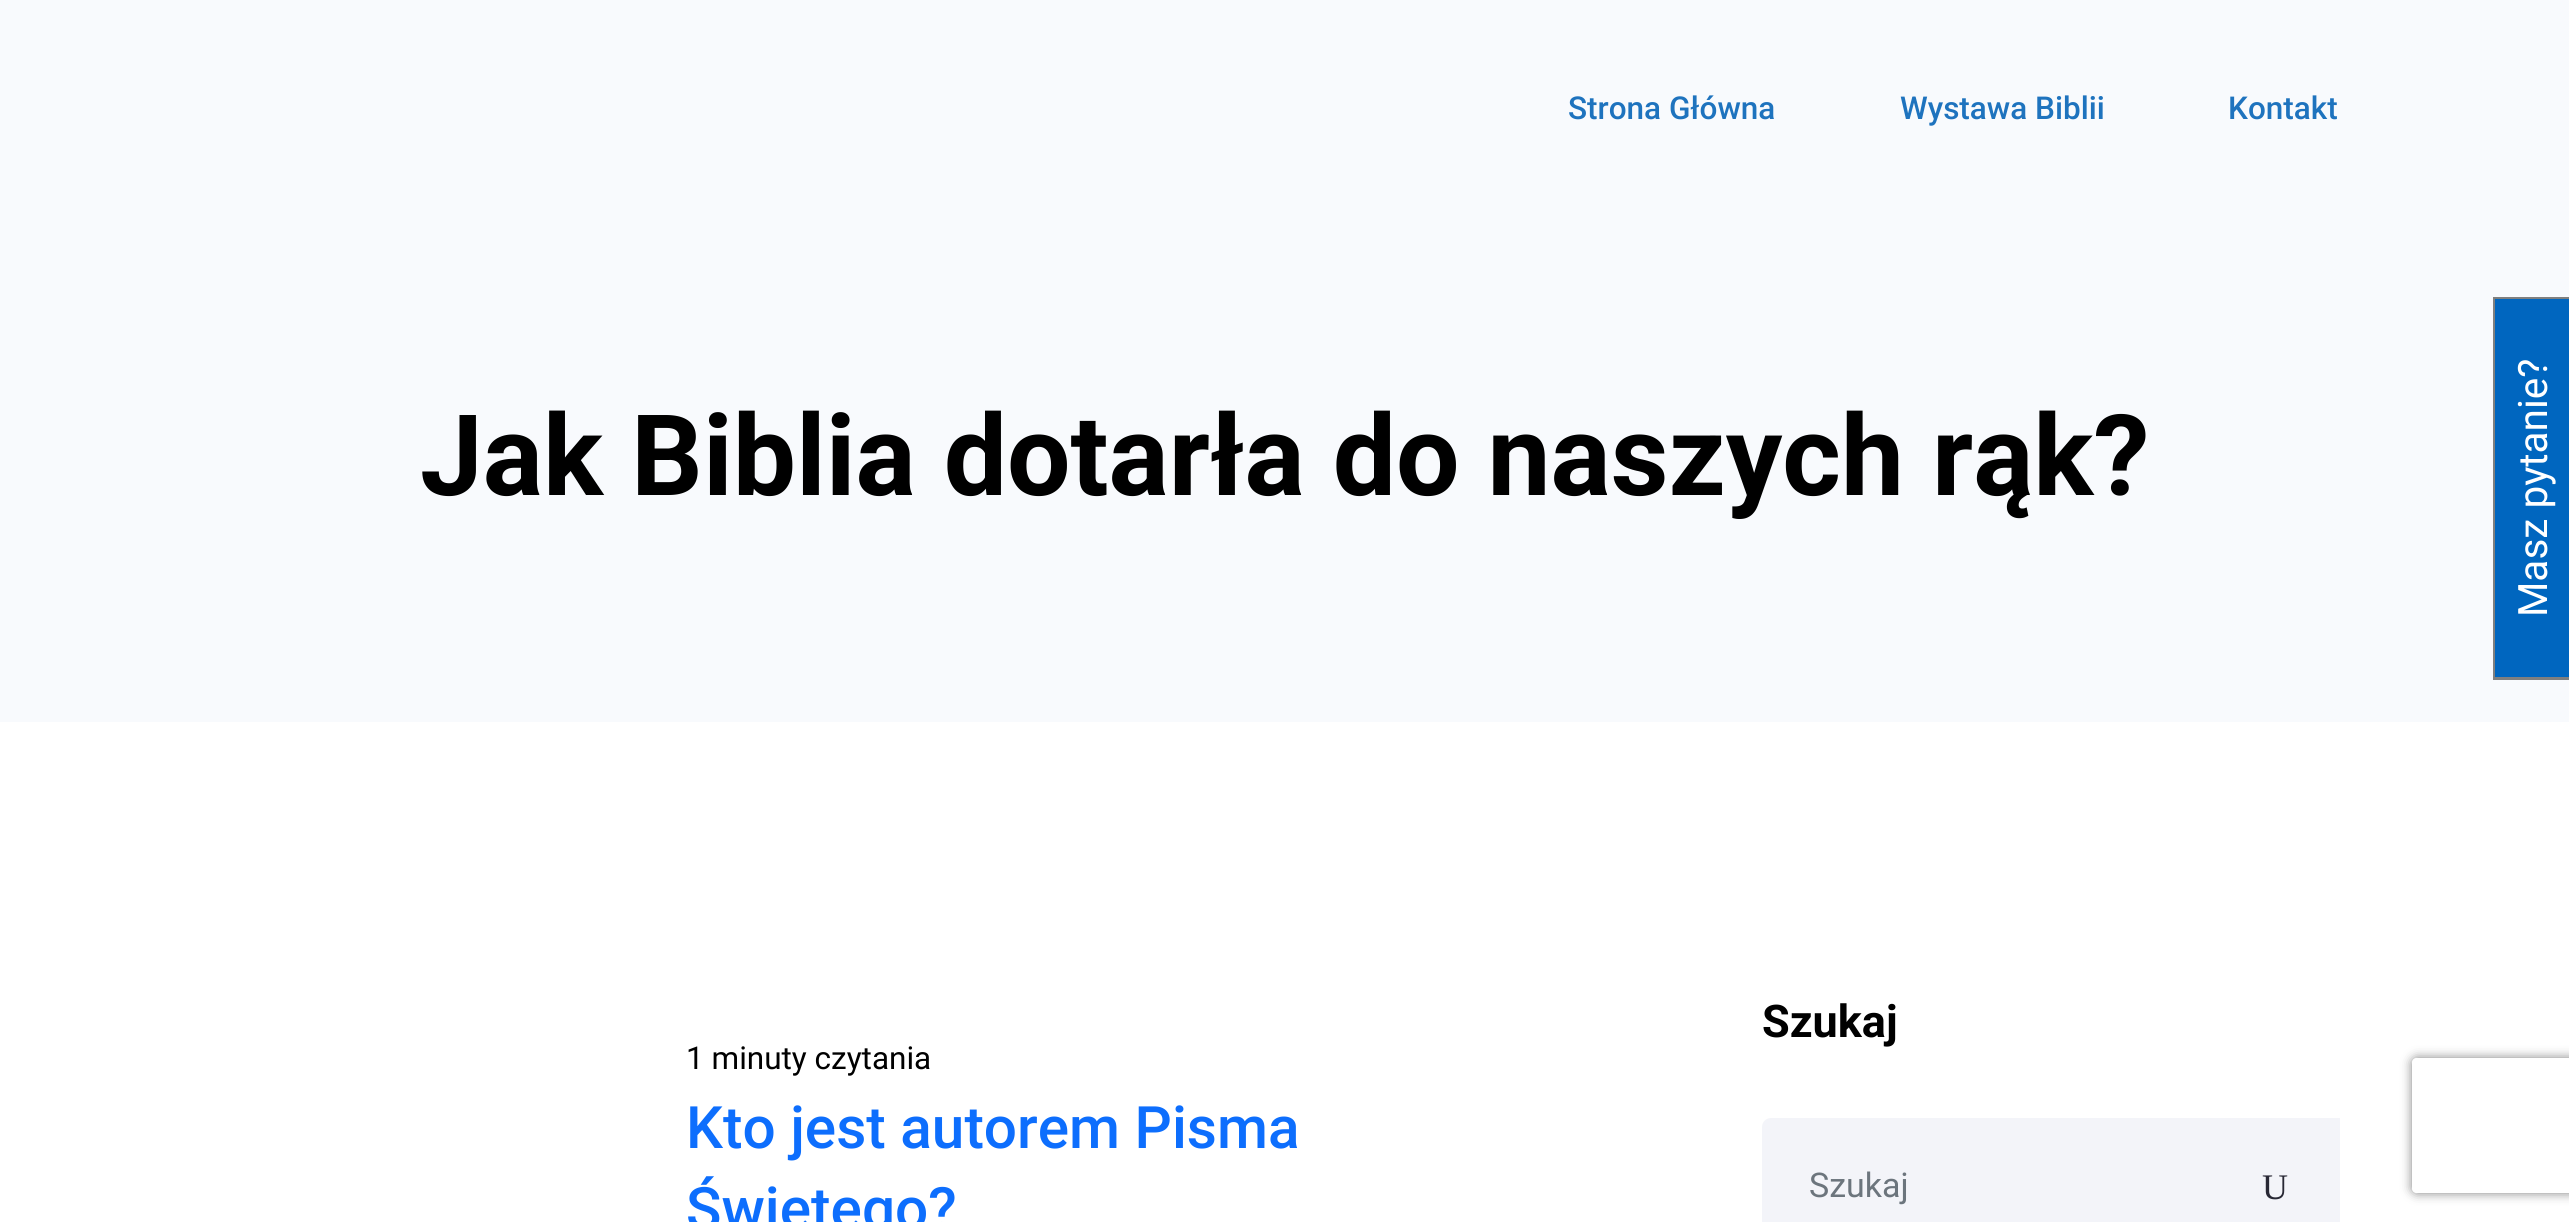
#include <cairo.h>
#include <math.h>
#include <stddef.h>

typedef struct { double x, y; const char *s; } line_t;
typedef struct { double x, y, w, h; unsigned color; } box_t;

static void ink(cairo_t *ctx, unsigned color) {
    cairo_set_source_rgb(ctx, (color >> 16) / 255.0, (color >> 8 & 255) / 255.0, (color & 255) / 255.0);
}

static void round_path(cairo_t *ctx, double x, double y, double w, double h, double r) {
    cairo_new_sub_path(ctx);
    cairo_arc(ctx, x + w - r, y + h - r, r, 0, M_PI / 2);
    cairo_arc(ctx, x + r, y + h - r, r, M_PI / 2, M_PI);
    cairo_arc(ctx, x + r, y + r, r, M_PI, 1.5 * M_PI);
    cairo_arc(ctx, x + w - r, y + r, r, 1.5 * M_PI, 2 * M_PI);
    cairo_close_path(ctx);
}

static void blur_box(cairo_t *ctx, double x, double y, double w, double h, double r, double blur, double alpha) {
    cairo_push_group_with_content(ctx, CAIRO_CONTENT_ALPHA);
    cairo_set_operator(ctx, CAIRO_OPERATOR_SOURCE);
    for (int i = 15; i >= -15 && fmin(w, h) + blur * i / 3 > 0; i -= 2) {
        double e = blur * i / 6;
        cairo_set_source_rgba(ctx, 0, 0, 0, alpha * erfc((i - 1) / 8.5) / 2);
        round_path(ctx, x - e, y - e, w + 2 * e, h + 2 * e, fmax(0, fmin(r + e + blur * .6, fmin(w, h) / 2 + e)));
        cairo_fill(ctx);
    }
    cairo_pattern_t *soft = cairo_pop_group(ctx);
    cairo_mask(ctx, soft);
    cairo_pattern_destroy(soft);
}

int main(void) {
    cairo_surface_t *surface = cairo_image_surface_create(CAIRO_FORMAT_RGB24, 2569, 1222);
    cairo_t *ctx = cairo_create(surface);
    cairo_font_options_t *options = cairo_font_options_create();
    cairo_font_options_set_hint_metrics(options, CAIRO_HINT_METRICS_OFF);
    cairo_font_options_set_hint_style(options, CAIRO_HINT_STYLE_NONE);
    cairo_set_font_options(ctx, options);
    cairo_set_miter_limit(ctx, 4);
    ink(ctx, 0xFFFFFF);
    cairo_paint(ctx);
    ink(ctx, 0xF8FAFD);
    cairo_rectangle(ctx, 0, 0, 2569, 722);
    cairo_fill(ctx);
    cairo_select_font_face(ctx, "Roboto Medium", CAIRO_FONT_SLANT_NORMAL, CAIRO_FONT_WEIGHT_NORMAL);
    cairo_set_font_size(ctx, 31.5);
    ink(ctx, 0x1E73BE);
    {
        static const line_t items[] = {
            {1568, 119, "Strona Główna"},
            {1900, 119, "Wystawa Biblii"},
            {2228, 119, "Kontakt"},
        };
        for (size_t i = 0; i < sizeof items / sizeof *items; i++) {
            cairo_move_to(ctx, items[i].x, items[i].y);
            cairo_show_text(ctx, items[i].s);
        }
    }
    cairo_select_font_face(ctx, "Roboto", CAIRO_FONT_SLANT_NORMAL, CAIRO_FONT_WEIGHT_BOLD);
    cairo_set_font_size(ctx, 112.5);
    ink(ctx, 0x000000);
    cairo_move_to(ctx, 420, 495);
    cairo_show_text(ctx, "Jak Biblia dotarła do naszych rąk?");
    cairo_select_font_face(ctx, "Roboto", CAIRO_FONT_SLANT_NORMAL, CAIRO_FONT_WEIGHT_NORMAL);
    cairo_set_font_size(ctx, 31.5);
    cairo_move_to(ctx, 686, 1069);
    cairo_show_text(ctx, "1 minuty czytania");
    cairo_select_font_face(ctx, "Roboto Medium", CAIRO_FONT_SLANT_NORMAL, CAIRO_FONT_WEIGHT_NORMAL);
    cairo_set_font_size(ctx, 58.5);
    ink(ctx, 0x0D6EFD);
    cairo_move_to(ctx, 686, 1148);
    cairo_show_text(ctx, "Kto jest autorem Pisma");
    cairo_move_to(ctx, 686, 1229);
    cairo_show_text(ctx, "Świętego?");
    cairo_select_font_face(ctx, "Roboto", CAIRO_FONT_SLANT_NORMAL, CAIRO_FONT_WEIGHT_BOLD);
    cairo_set_font_size(ctx, 45);
    ink(ctx, 0x000000);
    cairo_move_to(ctx, 1762, 1037);
    cairo_show_text(ctx, "Szukaj");
    ink(ctx, 0xF3F4F9);
    cairo_new_path(ctx);
    cairo_move_to(ctx, 1771, 1118);
    cairo_line_to(ctx, 2340, 1118);
    cairo_line_to(ctx, 2340, 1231);
    cairo_line_to(ctx, 1771, 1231);
    cairo_curve_to(ctx, 1766, 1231, 1762, 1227, 1762, 1222);
    cairo_line_to(ctx, 1762, 1127);
    cairo_curve_to(ctx, 1762, 1122, 1766, 1118, 1771, 1118);
    cairo_close_path(ctx);
    cairo_fill(ctx);
    cairo_select_font_face(ctx, "Roboto", CAIRO_FONT_SLANT_NORMAL, CAIRO_FONT_WEIGHT_NORMAL);
    cairo_set_font_size(ctx, 34);
    ink(ctx, 0x6C757D);
    cairo_move_to(ctx, 1809, 1197);
    cairo_show_text(ctx, "Szukaj");
    cairo_select_font_face(ctx, "Liberation Serif", CAIRO_FONT_SLANT_NORMAL, CAIRO_FONT_WEIGHT_NORMAL);
    cairo_set_font_size(ctx, 36);
    ink(ctx, 0x282835);
    cairo_move_to(ctx, 2262, 1199);
    cairo_show_text(ctx, "U");
    {
        static const box_t items[] = {
            {2495, 299, 74, 378, 0x0066BF},
            {2493, 297, 2, 383, 0x7F7F7F},
            {2493, 297, 76, 2, 0x7F7F7F},
            {2493, 677, 76, 3, 0x7F7F7F},
        };
        for (size_t i = 0; i < sizeof items / sizeof *items; i++) {
            ink(ctx, items[i].color);
            cairo_rectangle(ctx, items[i].x, items[i].y, items[i].w, items[i].h);
            cairo_fill(ctx);
        }
    }
    cairo_select_font_face(ctx, "Roboto", CAIRO_FONT_SLANT_NORMAL, CAIRO_FONT_WEIGHT_NORMAL);
    cairo_set_font_size(ctx, 40.5);
    ink(ctx, 0xFFFFFF);
    cairo_save(ctx);
    cairo_translate(ctx, 2547, 617);
    cairo_rotate(ctx, -90 * M_PI / 180);
    cairo_move_to(ctx, 0, 0);
    cairo_show_text(ctx, "Masz pytanie?");
    cairo_restore(ctx);
    cairo_save(ctx);
    cairo_set_fill_rule(ctx, CAIRO_FILL_RULE_EVEN_ODD);
    cairo_new_path(ctx);
    cairo_move_to(ctx, 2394, 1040);
    cairo_line_to(ctx, 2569, 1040);
    cairo_line_to(ctx, 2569, 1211);
    cairo_line_to(ctx, 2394, 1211);
    cairo_close_path(ctx);
    cairo_move_to(ctx, 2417, 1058);
    cairo_line_to(ctx, 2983, 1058);
    cairo_curve_to(ctx, 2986, 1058, 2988, 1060, 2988, 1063);
    cairo_line_to(ctx, 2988, 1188);
    cairo_curve_to(ctx, 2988, 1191, 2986, 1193, 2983, 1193);
    cairo_line_to(ctx, 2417, 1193);
    cairo_curve_to(ctx, 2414, 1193, 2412, 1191, 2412, 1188);
    cairo_line_to(ctx, 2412, 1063);
    cairo_curve_to(ctx, 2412, 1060, 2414, 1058, 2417, 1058);
    cairo_close_path(ctx);
    cairo_clip(ctx);
    ink(ctx, 0x808080);
    blur_box(ctx, 2412, 1058, 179, 135, 5, 5.5, 1);
    cairo_restore(ctx);
    cairo_surface_write_to_png(surface, "image.png");
    cairo_font_options_destroy(options);
    cairo_destroy(ctx);
    cairo_surface_destroy(surface);
    return 0;
}
